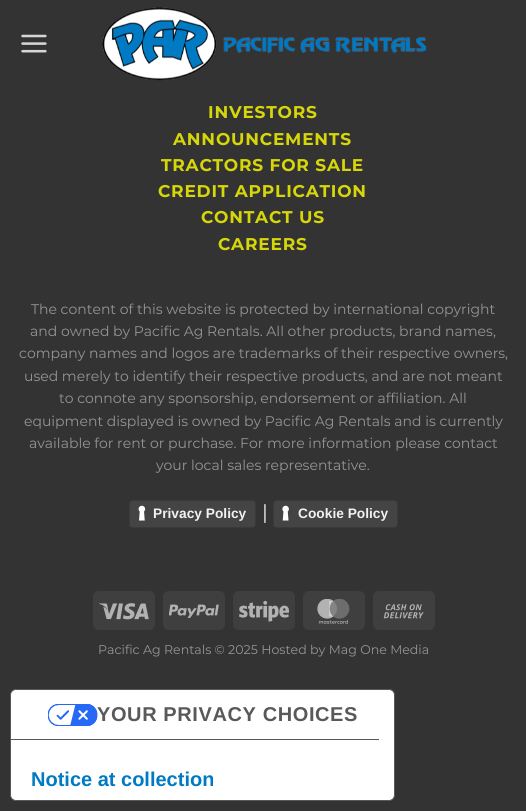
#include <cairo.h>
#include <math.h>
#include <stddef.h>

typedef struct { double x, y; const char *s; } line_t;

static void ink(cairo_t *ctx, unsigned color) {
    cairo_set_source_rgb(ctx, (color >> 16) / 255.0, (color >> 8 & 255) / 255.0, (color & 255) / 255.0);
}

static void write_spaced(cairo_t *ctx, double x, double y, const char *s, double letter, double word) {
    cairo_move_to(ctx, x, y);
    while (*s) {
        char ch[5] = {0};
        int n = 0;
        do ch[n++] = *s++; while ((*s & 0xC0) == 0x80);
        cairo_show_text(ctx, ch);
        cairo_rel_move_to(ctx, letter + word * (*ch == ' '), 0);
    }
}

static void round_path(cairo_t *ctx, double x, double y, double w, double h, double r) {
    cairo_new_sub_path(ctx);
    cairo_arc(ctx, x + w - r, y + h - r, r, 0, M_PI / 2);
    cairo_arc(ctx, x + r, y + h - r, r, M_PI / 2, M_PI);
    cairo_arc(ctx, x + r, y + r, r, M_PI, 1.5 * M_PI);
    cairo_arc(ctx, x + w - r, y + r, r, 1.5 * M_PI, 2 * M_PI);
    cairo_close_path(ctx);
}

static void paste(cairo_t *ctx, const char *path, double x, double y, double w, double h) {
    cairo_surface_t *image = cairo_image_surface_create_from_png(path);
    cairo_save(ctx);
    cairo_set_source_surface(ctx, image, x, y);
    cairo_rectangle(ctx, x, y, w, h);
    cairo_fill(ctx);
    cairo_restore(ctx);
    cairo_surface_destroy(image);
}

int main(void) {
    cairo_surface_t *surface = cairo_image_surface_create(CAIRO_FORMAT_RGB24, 526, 811);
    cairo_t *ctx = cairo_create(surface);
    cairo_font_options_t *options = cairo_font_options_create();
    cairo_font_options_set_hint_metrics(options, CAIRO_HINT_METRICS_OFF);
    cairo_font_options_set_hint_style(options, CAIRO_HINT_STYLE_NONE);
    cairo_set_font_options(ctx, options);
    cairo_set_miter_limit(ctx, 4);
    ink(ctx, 0x333333);
    cairo_paint(ctx);
    paste(ctx, "media/1.png", 21, 34, 26, 19);
    paste(ctx, "media/2.png", 102, 7, 325, 74);
    cairo_select_font_face(ctx, "Montserrat", CAIRO_FONT_SLANT_NORMAL, CAIRO_FONT_WEIGHT_BOLD);
    cairo_set_font_size(ctx, 17);
    ink(ctx, 0xD6D60A);
    {
        static const line_t items[] = {
            {208, 118, "INVESTORS"},
            {173, 145, "ANNOUNCEMENTS"},
            {161, 171, "TRACTORS FOR SALE"},
            {158, 197, "CREDIT APPLICATION"},
            {201, 223, "CONTACT US"},
            {218, 250, "CAREERS"},
        };
        for (size_t i = 0; i < sizeof items / sizeof *items; i++) {
            write_spaced(ctx, items[i].x, items[i].y, items[i].s, 0.8, 0);
        }
    }
    cairo_select_font_face(ctx, "Montserrat", CAIRO_FONT_SLANT_NORMAL, CAIRO_FONT_WEIGHT_NORMAL);
    cairo_set_font_size(ctx, 14);
    ink(ctx, 0x949494);
    {
        static const line_t items[] = {
            {31, 314, "The content of this website is protected by international copyright"},
            {30, 336, "and owned by Pacific Ag Rentals. All other products, brand names,"},
            {19, 358, "company names and logos are trademarks of their respective owners,"},
            {24, 381, "used merely to identify their respective products, and are not meant"},
            {59, 403, "to connote any sponsorship, endorsement or affiliation. All"},
            {24, 426, "equipment displayed is owned by Pacific Ag Rentals and is currently"},
            {29, 448, "available for rent or purchase. For more information please contact"},
            {156, 470, "your local sales representative."},
        };
        for (size_t i = 0; i < sizeof items / sizeof *items; i++) {
            cairo_move_to(ctx, items[i].x, items[i].y);
            cairo_show_text(ctx, items[i].s);
        }
    }
    ink(ctx, 0x444444);
    round_path(ctx, 129, 500, 127, 28, 4);
    cairo_fill(ctx);
    paste(ctx, "media/3.png", 138, 505, 8, 16);
    round_path(ctx, 129.5, 500.5, 126, 27, 3.5);
    cairo_set_source_rgba(ctx, 0, 0, 0, 0.15);
    cairo_set_line_width(ctx, 1);
    cairo_stroke(ctx);
    cairo_select_font_face(ctx, "Liberation Sans", CAIRO_FONT_SLANT_NORMAL, CAIRO_FONT_WEIGHT_BOLD);
    cairo_set_font_size(ctx, 13.75);
    ink(ctx, 0xF1F1F1);
    cairo_move_to(ctx, 153, 518);
    cairo_show_text(ctx, "Privacy Policy");
    cairo_select_font_face(ctx, "Montserrat", CAIRO_FONT_SLANT_NORMAL, CAIRO_FONT_WEIGHT_NORMAL);
    cairo_set_font_size(ctx, 20);
    cairo_move_to(ctx, 262, 519);
    cairo_show_text(ctx, "|");
    ink(ctx, 0x444444);
    round_path(ctx, 273, 500, 125, 28, 4);
    cairo_fill(ctx);
    paste(ctx, "media/4.png", 282, 505, 7, 16);
    round_path(ctx, 273.5, 500.5, 124, 27, 3.5);
    cairo_set_source_rgba(ctx, 0, 0, 0, 0.15);
    cairo_stroke(ctx);
    cairo_select_font_face(ctx, "Liberation Sans", CAIRO_FONT_SLANT_NORMAL, CAIRO_FONT_WEIGHT_BOLD);
    cairo_set_font_size(ctx, 13.75);
    ink(ctx, 0xF1F1F1);
    cairo_move_to(ctx, 298, 518);
    cairo_show_text(ctx, "Cookie Policy");
    ink(ctx, 0x3F3F3F);
    round_path(ctx, 93, 591, 62, 39, 6);
    cairo_fill(ctx);
    paste(ctx, "media/5.png", 99, 603, 50, 17);
    round_path(ctx, 163, 591, 62, 39, 6);
    cairo_fill(ctx);
    paste(ctx, "media/6.png", 169, 604, 50, 14);
    round_path(ctx, 233, 591, 62, 39, 6);
    cairo_fill(ctx);
    paste(ctx, "media/7.png", 239, 600, 50, 22);
    round_path(ctx, 303, 591, 62, 39, 6);
    cairo_fill(ctx);
    paste(ctx, "media/8.png", 317, 599, 33, 25);
    round_path(ctx, 373, 591, 62, 39, 6);
    cairo_fill(ctx);
    paste(ctx, "media/9.png", 383, 604, 41, 15);
    cairo_select_font_face(ctx, "Montserrat", CAIRO_FONT_SLANT_NORMAL, CAIRO_FONT_WEIGHT_NORMAL);
    cairo_set_font_size(ctx, 12.6);
    ink(ctx, 0x949494);
    cairo_move_to(ctx, 98, 654);
    cairo_show_text(ctx, "Pacific Ag Rentals © 2025 Hosted by Mag One Media");
    ink(ctx, 0xFFFFFF);
    round_path(ctx, 10.5, 689.5, 384, 111, 5.5);
    cairo_fill_preserve(ctx);
    ink(ctx, 0x595959);
    cairo_stroke(ctx);
    cairo_rectangle(ctx, 11, 739, 368, 1);
    cairo_fill(ctx);
    cairo_select_font_face(ctx, "Liberation Sans", CAIRO_FONT_SLANT_NORMAL, CAIRO_FONT_WEIGHT_BOLD);
    cairo_set_font_size(ctx, 20);
    write_spaced(ctx, 97, 721, "YOUR PRIVACY CHOICES", 0.6, 0);
    paste(ctx, "media/10.png", 48, 704, 50, 22);
    ink(ctx, 0x007AC3);
    cairo_move_to(ctx, 31, 786);
    cairo_show_text(ctx, "Notice at collection");
    cairo_surface_write_to_png(surface, "image.png");
    cairo_font_options_destroy(options);
    cairo_destroy(ctx);
    cairo_surface_destroy(surface);
    return 0;
}
